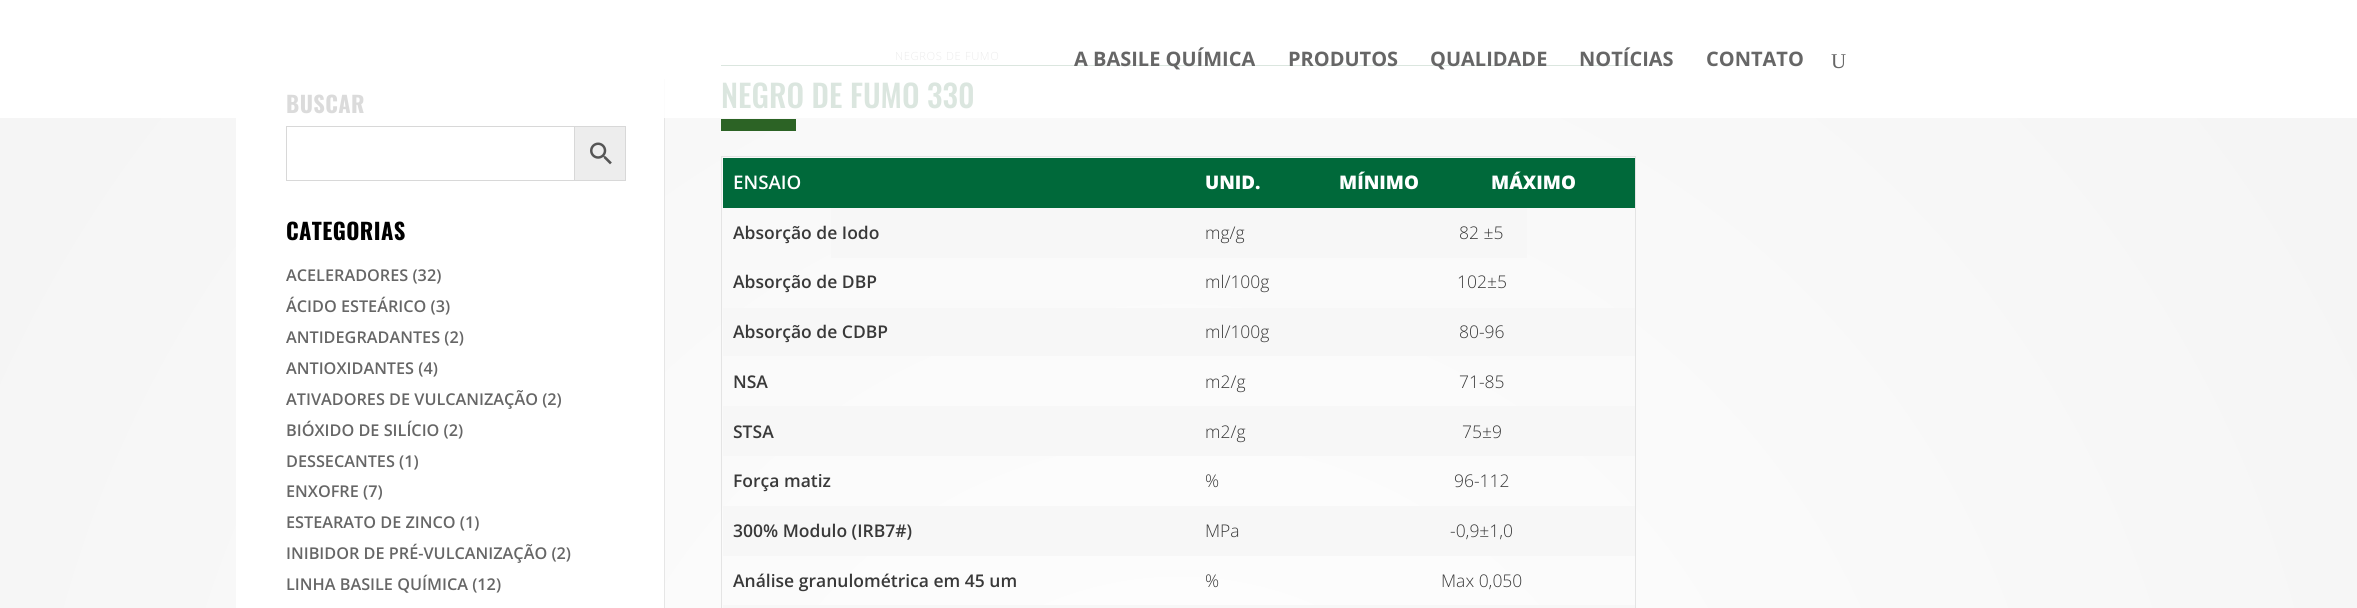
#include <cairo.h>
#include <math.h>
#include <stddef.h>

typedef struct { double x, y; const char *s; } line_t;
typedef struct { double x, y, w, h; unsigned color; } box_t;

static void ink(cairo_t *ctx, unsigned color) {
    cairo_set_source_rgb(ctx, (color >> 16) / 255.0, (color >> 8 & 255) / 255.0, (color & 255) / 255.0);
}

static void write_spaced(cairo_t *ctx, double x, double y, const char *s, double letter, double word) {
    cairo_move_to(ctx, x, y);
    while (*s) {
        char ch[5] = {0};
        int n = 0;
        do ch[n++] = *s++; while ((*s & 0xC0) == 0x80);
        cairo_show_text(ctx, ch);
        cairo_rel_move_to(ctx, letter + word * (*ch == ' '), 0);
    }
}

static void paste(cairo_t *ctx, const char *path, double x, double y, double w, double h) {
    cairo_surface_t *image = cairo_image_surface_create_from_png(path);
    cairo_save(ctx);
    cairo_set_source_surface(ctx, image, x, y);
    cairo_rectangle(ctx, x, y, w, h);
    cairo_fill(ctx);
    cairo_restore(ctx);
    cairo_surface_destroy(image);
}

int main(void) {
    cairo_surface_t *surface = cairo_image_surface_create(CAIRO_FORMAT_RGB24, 2357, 608);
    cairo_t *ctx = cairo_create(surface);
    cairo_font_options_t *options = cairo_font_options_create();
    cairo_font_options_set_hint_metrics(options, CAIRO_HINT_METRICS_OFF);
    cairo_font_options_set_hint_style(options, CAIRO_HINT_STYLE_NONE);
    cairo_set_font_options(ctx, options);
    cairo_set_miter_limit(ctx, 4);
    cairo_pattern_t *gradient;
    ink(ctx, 0xFFFFFF);
    cairo_paint(ctx);
    ink(ctx, 0xDBE6DF);
    cairo_rectangle(ctx, 721, 65, 915, 1);
    cairo_fill(ctx);
    cairo_select_font_face(ctx, "Open Sans", CAIRO_FONT_SLANT_NORMAL, CAIRO_FONT_WEIGHT_BOLD);
    cairo_set_font_size(ctx, 20);
    ink(ctx, 0x666666);
    {
        static const line_t items[] = {
            {1074, 66, "A BASILE QUÍMICA"},
            {1288, 66, "PRODUTOS"},
            {1430, 66, "QUALIDADE"},
            {1579, 66, "NOTÍCIAS"},
            {1706, 66, "CONTATO"},
        };
        for (size_t i = 0; i < sizeof items / sizeof *items; i++) {
            cairo_move_to(ctx, items[i].x, items[i].y);
            cairo_show_text(ctx, items[i].s);
        }
    }
    cairo_select_font_face(ctx, "Liberation Serif", CAIRO_FONT_SLANT_NORMAL, CAIRO_FONT_WEIGHT_NORMAL);
    cairo_set_font_size(ctx, 21);
    cairo_move_to(ctx, 1831, 68);
    cairo_show_text(ctx, "U");
    gradient = cairo_pattern_create_radial(1179, 917, 0, 1179, 917, 1493);
    cairo_pattern_add_color_stop_rgba(gradient, 0, 1, 1, 1, 1);
    cairo_pattern_add_color_stop_rgba(gradient, 1, 0.957, 0.957, 0.957, 1);
    cairo_set_source(ctx, gradient);
    cairo_pattern_destroy(gradient);
    cairo_rectangle(ctx, 0, 118, 2357, 490);
    cairo_fill(ctx);
    {
        static const box_t items[] = {
            {236, 118, 428, 490, 0xFFFFFF},
            {664, 118, 1, 490, 0xE6E6E6},
            {664, 79, 1, 39, 0xFCFCFC},
        };
        for (size_t i = 0; i < sizeof items / sizeof *items; i++) {
            ink(ctx, items[i].color);
            cairo_rectangle(ctx, items[i].x, items[i].y, items[i].w, items[i].h);
            cairo_fill(ctx);
        }
    }
    cairo_select_font_face(ctx, "Oswald", CAIRO_FONT_SLANT_NORMAL, CAIRO_FONT_WEIGHT_BOLD);
    cairo_set_font_size(ctx, 22.5);
    ink(ctx, 0xDBDBDB);
    write_spaced(ctx, 286, 113, "BUSCAR", 0.4, 0);
    ink(ctx, 0xEDEDED);
    cairo_rectangle(ctx, 574.5, 126.5, 51, 54);
    cairo_fill_preserve(ctx);
    ink(ctx, 0xD8D8D8);
    cairo_set_line_width(ctx, 1);
    cairo_stroke(ctx);
    cairo_rectangle(ctx, 286.5, 126.5, 288, 54);
    cairo_stroke(ctx);
    paste(ctx, "media/1.png", 590, 142, 22, 23);
    ink(ctx, 0x000000);
    write_spaced(ctx, 286, 240, "CATEGORIAS", 0.4, 0);
    cairo_select_font_face(ctx, "Open Sans SemiBold", CAIRO_FONT_SLANT_NORMAL, CAIRO_FONT_WEIGHT_NORMAL);
    cairo_set_font_size(ctx, 16.25);
    ink(ctx, 0x666666);
    {
        static const line_t items[] = {
            {286, 281, "ACELERADORES (32)"},
            {286, 312, "ÁCIDO ESTEÁRICO (3)"},
            {286, 343, "ANTIDEGRADANTES (2)"},
            {286, 374, "ANTIOXIDANTES (4)"},
            {286, 405, "ATIVADORES DE VULCANIZAÇÃO (2)"},
            {286, 436, "BIÓXIDO DE SILÍCIO (2)"},
            {286, 467, "DESSECANTES (1)"},
            {286, 497, "ENXOFRE (7)"},
            {286, 528, "ESTEARATO DE ZINCO (1)"},
            {286, 559, "INIBIDOR DE PRÉ-VULCANIZAÇÃO (2)"},
            {286, 590, "LINHA BASILE QUÍMICA (12)"},
        };
        for (size_t i = 0; i < sizeof items / sizeof *items; i++) {
            cairo_move_to(ctx, items[i].x, items[i].y);
            cairo_show_text(ctx, items[i].s);
        }
    }
    cairo_select_font_face(ctx, "Open Sans Light", CAIRO_FONT_SLANT_NORMAL, CAIRO_FONT_WEIGHT_NORMAL);
    cairo_set_font_size(ctx, 11.25);
    ink(ctx, 0xECECEC);
    write_spaced(ctx, 895, 60, "NEGROS DE FUMO", 0.6, 0);
    cairo_select_font_face(ctx, "Oswald Medium", CAIRO_FONT_SLANT_NORMAL, CAIRO_FONT_WEIGHT_NORMAL);
    cairo_set_font_size(ctx, 31.25);
    ink(ctx, 0xDBE6DF);
    cairo_move_to(ctx, 721, 108);
    cairo_show_text(ctx, "NEGRO DE FUMO 330");
    {
        static const box_t items[] = {
            {721, 119, 75, 12, 0x2C6325},
            {721, 156, 915, 1, 0xE4E4E4},
            {1635, 156, 1, 452, 0xE4E4E4},
            {721, 156, 1, 452, 0xE4E4E4},
            {723, 158, 912, 50, 0x00693A},
        };
        for (size_t i = 0; i < sizeof items / sizeof *items; i++) {
            ink(ctx, items[i].color);
            cairo_rectangle(ctx, items[i].x, items[i].y, items[i].w, items[i].h);
            cairo_fill(ctx);
        }
    }
    cairo_select_font_face(ctx, "Open Sans SemiBold", CAIRO_FONT_SLANT_NORMAL, CAIRO_FONT_WEIGHT_NORMAL);
    cairo_set_font_size(ctx, 18.75);
    ink(ctx, 0xFFFFFF);
    cairo_move_to(ctx, 733, 189);
    cairo_show_text(ctx, "ENSAIO");
    cairo_select_font_face(ctx, "Open Sans ExtraBold", CAIRO_FONT_SLANT_NORMAL, CAIRO_FONT_WEIGHT_NORMAL);
    {
        static const line_t items[] = {
            {1205, 189, "UNID."},
            {1339, 189, "MÍNIMO"},
            {1491, 189, "MÁXIMO"},
        };
        for (size_t i = 0; i < sizeof items / sizeof *items; i++) {
            cairo_move_to(ctx, items[i].x, items[i].y);
            cairo_show_text(ctx, items[i].s);
        }
    }
    ink(ctx, 0xF7F7F7);
    cairo_rectangle(ctx, 831, 208, 696, 50);
    cairo_fill(ctx);
    cairo_select_font_face(ctx, "Open Sans SemiBold", CAIRO_FONT_SLANT_NORMAL, CAIRO_FONT_WEIGHT_NORMAL);
    cairo_set_font_size(ctx, 17.5);
    ink(ctx, 0x393939);
    cairo_move_to(ctx, 733, 239);
    cairo_show_text(ctx, "Absorção de Iodo");
    cairo_select_font_face(ctx, "Open Sans Light", CAIRO_FONT_SLANT_NORMAL, CAIRO_FONT_WEIGHT_NORMAL);
    cairo_move_to(ctx, 1205, 239);
    cairo_show_text(ctx, "mg/g");
    cairo_move_to(ctx, 1459, 239);
    cairo_show_text(ctx, "82 ±5");
    cairo_select_font_face(ctx, "Open Sans SemiBold", CAIRO_FONT_SLANT_NORMAL, CAIRO_FONT_WEIGHT_NORMAL);
    cairo_move_to(ctx, 733, 288);
    cairo_show_text(ctx, "Absorção de DBP");
    cairo_select_font_face(ctx, "Open Sans Light", CAIRO_FONT_SLANT_NORMAL, CAIRO_FONT_WEIGHT_NORMAL);
    cairo_move_to(ctx, 1205, 288);
    cairo_show_text(ctx, "ml/100g");
    cairo_move_to(ctx, 1457, 288);
    cairo_show_text(ctx, "102±5");
    ink(ctx, 0xF7F7F7);
    cairo_rectangle(ctx, 723, 308, 912, 48);
    cairo_fill(ctx);
    cairo_select_font_face(ctx, "Open Sans SemiBold", CAIRO_FONT_SLANT_NORMAL, CAIRO_FONT_WEIGHT_NORMAL);
    ink(ctx, 0x393939);
    cairo_move_to(ctx, 733, 338);
    cairo_show_text(ctx, "Absorção de CDBP");
    cairo_select_font_face(ctx, "Open Sans Light", CAIRO_FONT_SLANT_NORMAL, CAIRO_FONT_WEIGHT_NORMAL);
    cairo_move_to(ctx, 1205, 338);
    cairo_show_text(ctx, "ml/100g");
    cairo_move_to(ctx, 1459, 338);
    cairo_show_text(ctx, "80-96");
    cairo_select_font_face(ctx, "Open Sans SemiBold", CAIRO_FONT_SLANT_NORMAL, CAIRO_FONT_WEIGHT_NORMAL);
    cairo_move_to(ctx, 733, 388);
    cairo_show_text(ctx, "NSA");
    cairo_select_font_face(ctx, "Open Sans Light", CAIRO_FONT_SLANT_NORMAL, CAIRO_FONT_WEIGHT_NORMAL);
    cairo_move_to(ctx, 1205, 388);
    cairo_show_text(ctx, "m2/g");
    cairo_move_to(ctx, 1459, 388);
    cairo_show_text(ctx, "71-85");
    ink(ctx, 0xF7F7F7);
    cairo_rectangle(ctx, 723, 406, 912, 50);
    cairo_fill(ctx);
    cairo_select_font_face(ctx, "Open Sans SemiBold", CAIRO_FONT_SLANT_NORMAL, CAIRO_FONT_WEIGHT_NORMAL);
    ink(ctx, 0x393939);
    cairo_move_to(ctx, 733, 438);
    cairo_show_text(ctx, "STSA");
    cairo_select_font_face(ctx, "Open Sans Light", CAIRO_FONT_SLANT_NORMAL, CAIRO_FONT_WEIGHT_NORMAL);
    cairo_move_to(ctx, 1205, 438);
    cairo_show_text(ctx, "m2/g");
    cairo_move_to(ctx, 1462, 438);
    cairo_show_text(ctx, "75±9");
    cairo_select_font_face(ctx, "Open Sans SemiBold", CAIRO_FONT_SLANT_NORMAL, CAIRO_FONT_WEIGHT_NORMAL);
    cairo_move_to(ctx, 733, 487);
    cairo_show_text(ctx, "Força matiz");
    cairo_select_font_face(ctx, "Open Sans Light", CAIRO_FONT_SLANT_NORMAL, CAIRO_FONT_WEIGHT_NORMAL);
    cairo_move_to(ctx, 1205, 487);
    cairo_show_text(ctx, "%");
    cairo_move_to(ctx, 1454, 487);
    cairo_show_text(ctx, "96-112");
    ink(ctx, 0xF7F7F7);
    cairo_rectangle(ctx, 723, 506, 912, 50);
    cairo_fill(ctx);
    cairo_select_font_face(ctx, "Open Sans SemiBold", CAIRO_FONT_SLANT_NORMAL, CAIRO_FONT_WEIGHT_NORMAL);
    ink(ctx, 0x393939);
    cairo_move_to(ctx, 733, 537);
    cairo_show_text(ctx, "300% Modulo (IRB7#)");
    cairo_select_font_face(ctx, "Open Sans Light", CAIRO_FONT_SLANT_NORMAL, CAIRO_FONT_WEIGHT_NORMAL);
    cairo_move_to(ctx, 1205, 537);
    cairo_show_text(ctx, "MPa");
    cairo_move_to(ctx, 1450, 537);
    cairo_show_text(ctx, "-0,9±1,0");
    cairo_select_font_face(ctx, "Open Sans SemiBold", CAIRO_FONT_SLANT_NORMAL, CAIRO_FONT_WEIGHT_NORMAL);
    cairo_move_to(ctx, 733, 587);
    cairo_show_text(ctx, "Análise granulométrica em 45 um");
    cairo_select_font_face(ctx, "Open Sans Light", CAIRO_FONT_SLANT_NORMAL, CAIRO_FONT_WEIGHT_NORMAL);
    cairo_move_to(ctx, 1205, 587);
    cairo_show_text(ctx, "%");
    cairo_move_to(ctx, 1441, 587);
    cairo_show_text(ctx, "Max 0,050");
    ink(ctx, 0xF7F7F7);
    cairo_rectangle(ctx, 723, 605, 912, 3);
    cairo_fill(ctx);
    cairo_surface_write_to_png(surface, "image.png");
    cairo_font_options_destroy(options);
    cairo_destroy(ctx);
    cairo_surface_destroy(surface);
    return 0;
}
